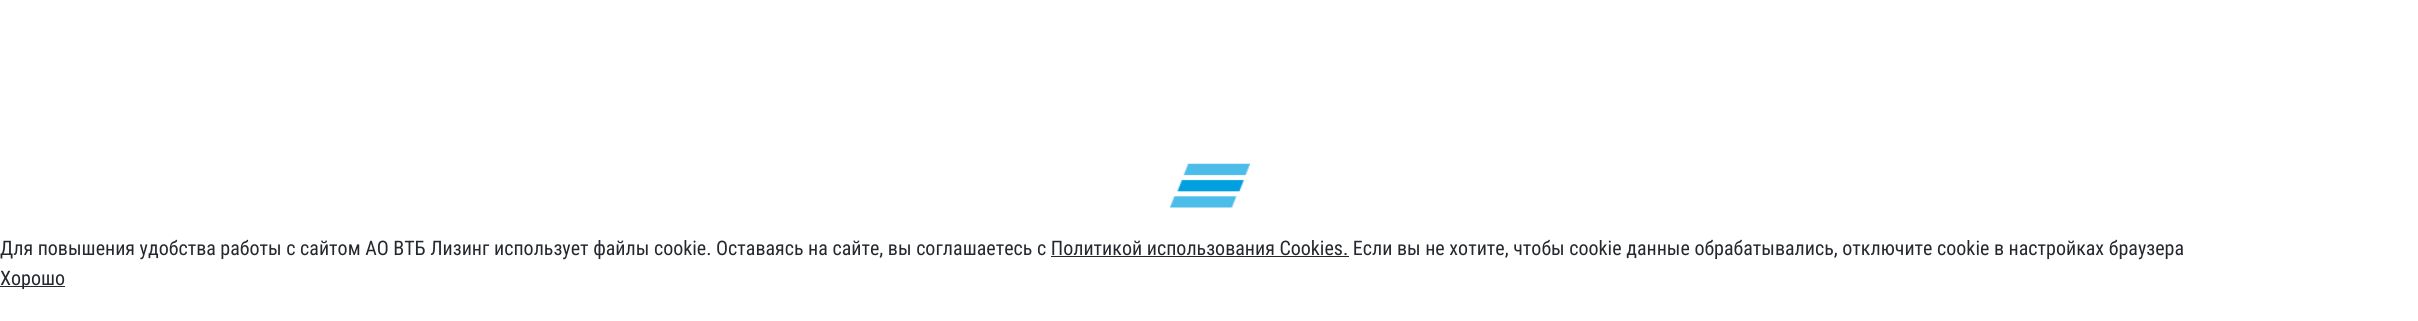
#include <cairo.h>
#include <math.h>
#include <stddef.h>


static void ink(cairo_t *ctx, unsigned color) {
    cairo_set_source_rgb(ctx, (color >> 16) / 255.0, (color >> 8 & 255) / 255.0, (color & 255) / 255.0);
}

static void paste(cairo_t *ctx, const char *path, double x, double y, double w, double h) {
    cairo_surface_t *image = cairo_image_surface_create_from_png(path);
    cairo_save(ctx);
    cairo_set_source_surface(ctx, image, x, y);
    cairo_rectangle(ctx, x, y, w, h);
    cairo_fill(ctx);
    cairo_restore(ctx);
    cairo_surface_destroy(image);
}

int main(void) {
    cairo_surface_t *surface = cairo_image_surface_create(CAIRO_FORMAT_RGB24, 2418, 321);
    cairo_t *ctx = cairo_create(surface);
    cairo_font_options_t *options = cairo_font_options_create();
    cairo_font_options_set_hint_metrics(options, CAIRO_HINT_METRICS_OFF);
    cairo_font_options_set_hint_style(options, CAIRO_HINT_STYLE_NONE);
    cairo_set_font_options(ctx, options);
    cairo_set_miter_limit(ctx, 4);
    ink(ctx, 0xFFFFFF);
    cairo_paint(ctx);
    paste(ctx, "media/1.png", 1170, 163, 80, 45);
    cairo_select_font_face(ctx, "Roboto Condensed", CAIRO_FONT_SLANT_NORMAL, CAIRO_FONT_WEIGHT_NORMAL);
    cairo_set_font_size(ctx, 20);
    ink(ctx, 0x25292F);
    cairo_move_to(ctx, 0, 255);
    cairo_show_text(ctx, "Для повышения удобства работы с сайтом АО ВТБ Лизинг использует файлы cookie. Оставаясь на сайте, вы соглашаетесь с Политикой использования Cookies. Если вы не хотите, чтобы сookie данные обрабатывались, отключите cookie в настройках браузера");
    cairo_rectangle(ctx, 1051, 256, 298, 1);
    cairo_fill(ctx);
    cairo_rectangle(ctx, 0, 286, 65, 1);
    cairo_fill(ctx);
    cairo_move_to(ctx, 0, 285);
    cairo_show_text(ctx, "Хорошо");
    cairo_surface_write_to_png(surface, "image.png");
    cairo_font_options_destroy(options);
    cairo_destroy(ctx);
    cairo_surface_destroy(surface);
    return 0;
}
